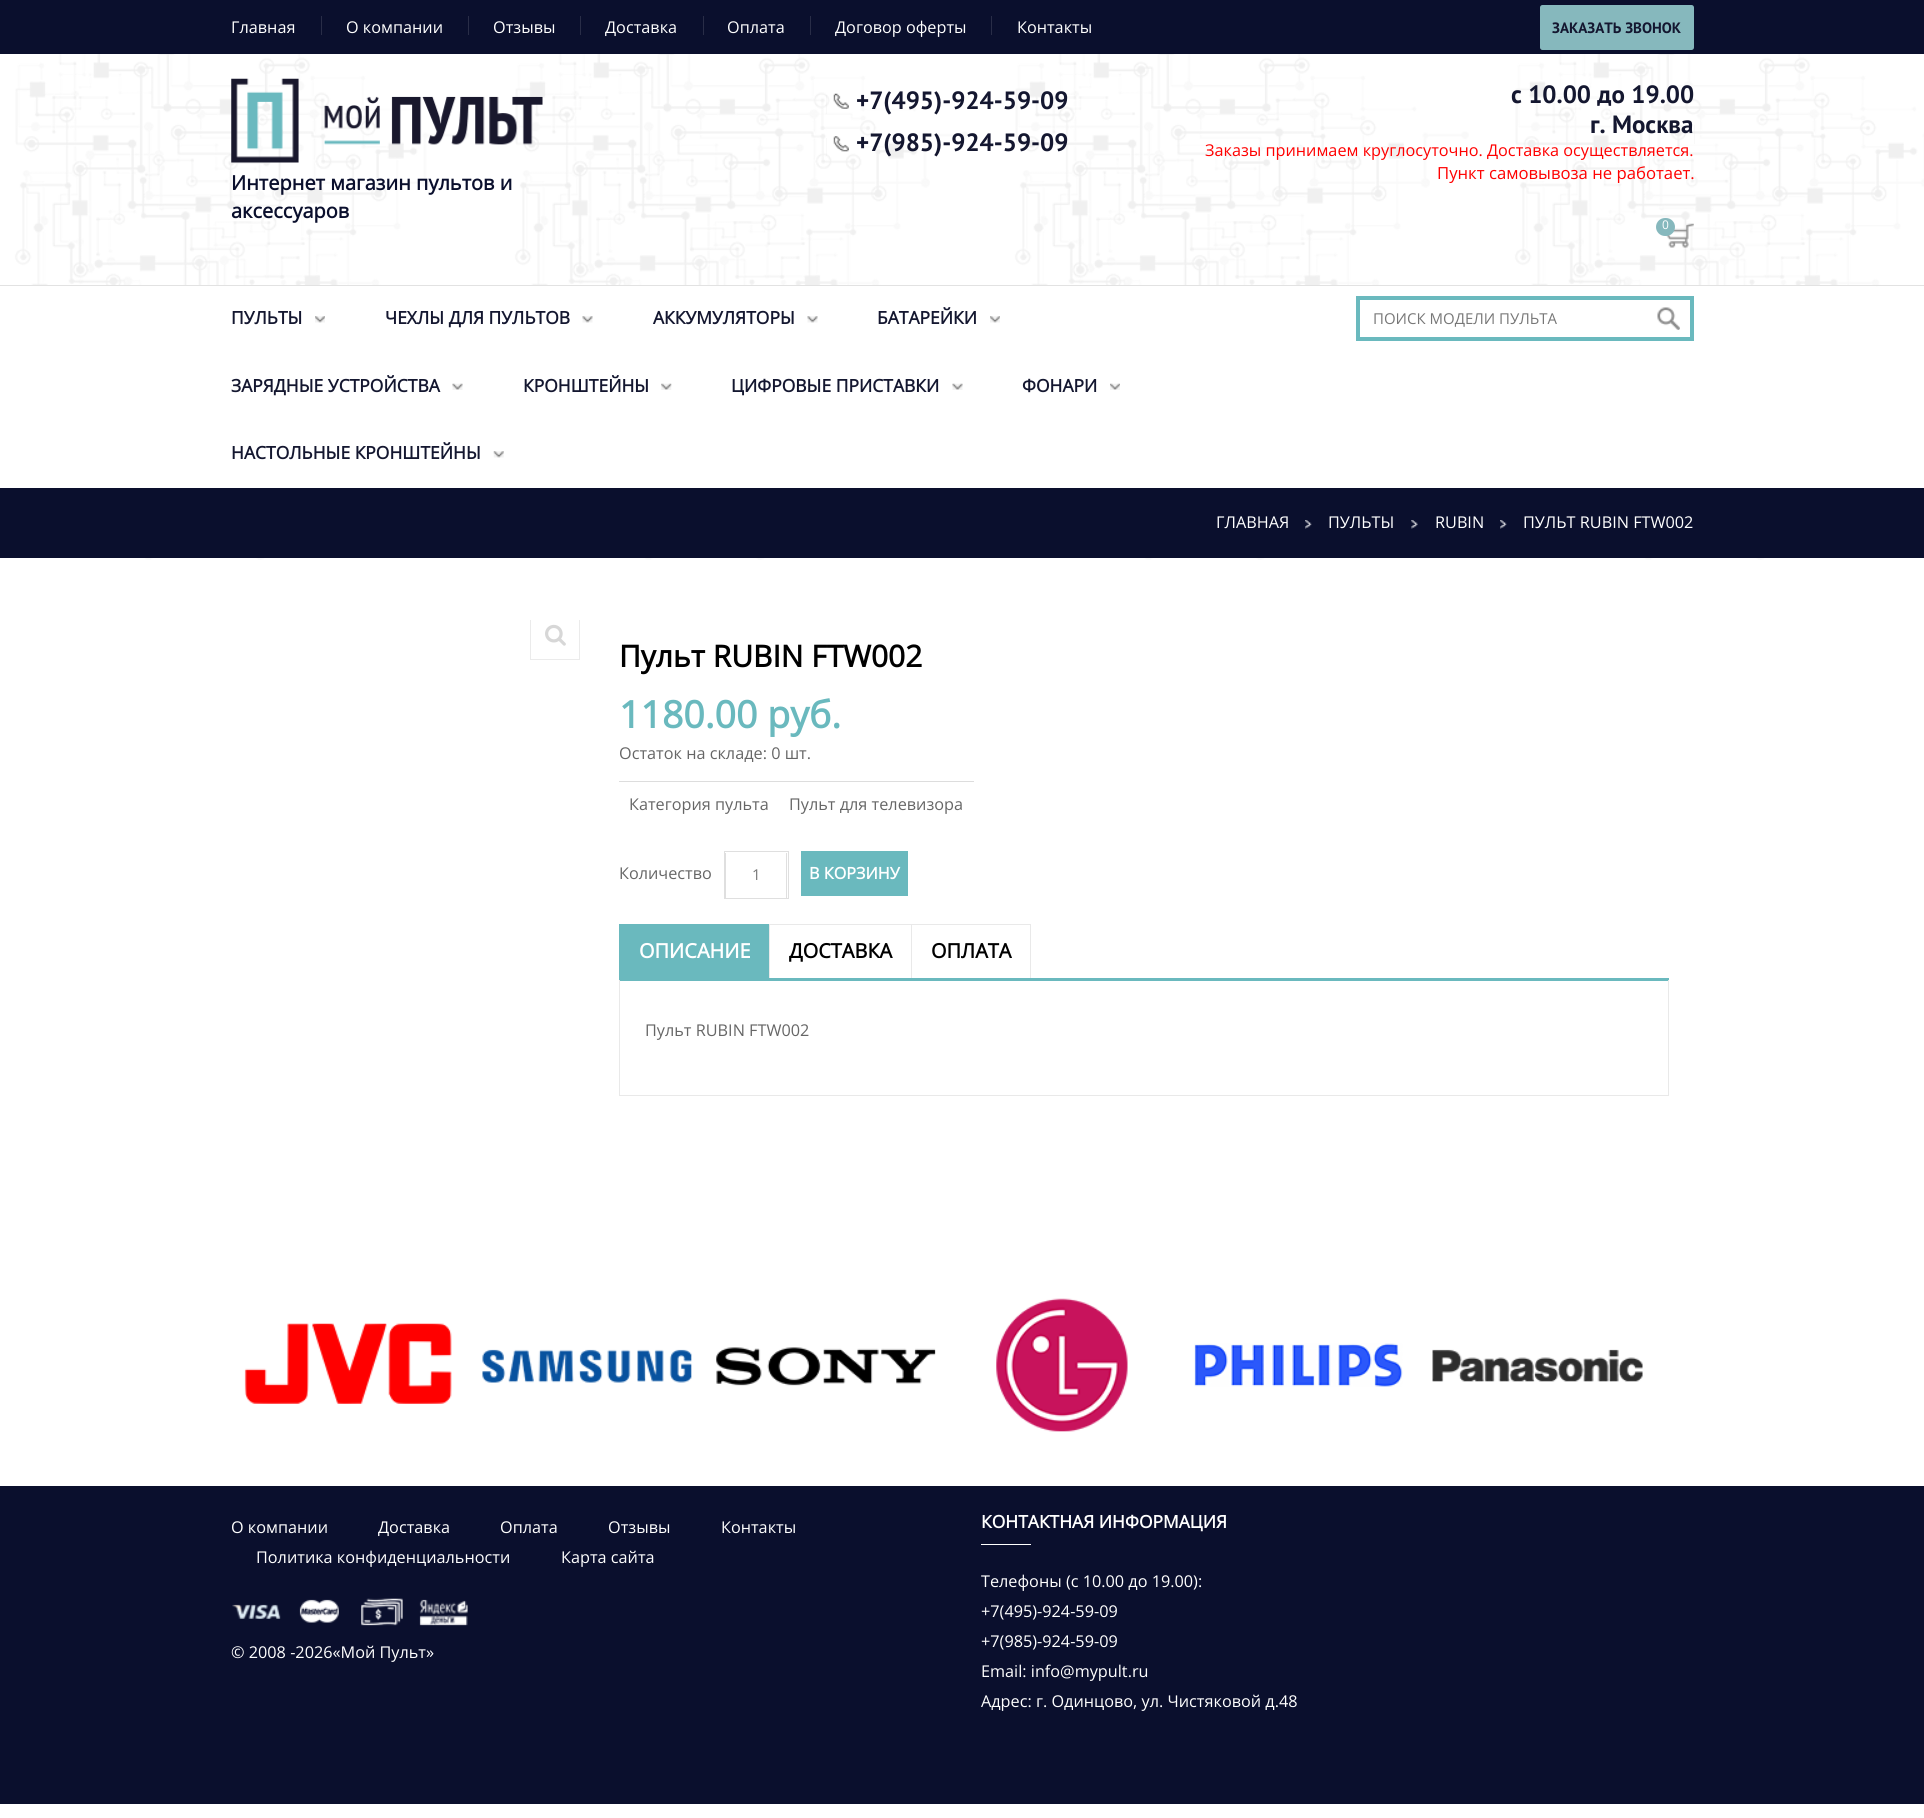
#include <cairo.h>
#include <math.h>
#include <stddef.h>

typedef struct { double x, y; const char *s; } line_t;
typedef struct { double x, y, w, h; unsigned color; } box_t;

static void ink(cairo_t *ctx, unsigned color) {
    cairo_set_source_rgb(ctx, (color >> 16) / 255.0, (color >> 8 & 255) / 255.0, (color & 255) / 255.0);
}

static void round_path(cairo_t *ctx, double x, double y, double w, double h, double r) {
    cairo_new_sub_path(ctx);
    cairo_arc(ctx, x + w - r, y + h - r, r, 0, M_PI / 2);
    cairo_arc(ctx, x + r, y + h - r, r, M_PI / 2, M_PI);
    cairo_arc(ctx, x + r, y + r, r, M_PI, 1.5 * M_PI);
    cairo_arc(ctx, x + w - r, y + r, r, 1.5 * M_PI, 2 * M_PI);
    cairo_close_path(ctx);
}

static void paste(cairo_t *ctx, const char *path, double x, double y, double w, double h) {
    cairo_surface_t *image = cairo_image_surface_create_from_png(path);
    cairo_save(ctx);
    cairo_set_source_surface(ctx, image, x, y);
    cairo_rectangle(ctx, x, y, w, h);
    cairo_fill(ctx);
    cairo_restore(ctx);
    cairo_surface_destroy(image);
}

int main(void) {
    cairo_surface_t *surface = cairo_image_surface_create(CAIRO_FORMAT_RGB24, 1924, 1818);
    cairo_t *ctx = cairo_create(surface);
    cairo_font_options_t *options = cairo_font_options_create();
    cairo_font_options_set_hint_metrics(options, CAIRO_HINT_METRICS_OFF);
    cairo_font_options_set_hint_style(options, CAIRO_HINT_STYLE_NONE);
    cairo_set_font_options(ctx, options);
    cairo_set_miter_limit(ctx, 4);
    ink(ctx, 0xFFFFFF);
    cairo_paint(ctx);
    paste(ctx, "media/1.png", 14, 54, 1910, 506);
    ink(ctx, 0x0A0F2D);
    cairo_rectangle(ctx, 0, 0, 1924, 54);
    cairo_fill(ctx);
    cairo_select_font_face(ctx, "Open Sans", CAIRO_FONT_SLANT_NORMAL, CAIRO_FONT_WEIGHT_NORMAL);
    cairo_set_font_size(ctx, 16.25);
    ink(ctx, 0xFFFFFF);
    cairo_move_to(ctx, 231, 33);
    cairo_show_text(ctx, "Главная");
    ink(ctx, 0x292D47);
    cairo_rectangle(ctx, 321, 16, 1, 19);
    cairo_fill(ctx);
    ink(ctx, 0xFFFFFF);
    cairo_move_to(ctx, 346, 33);
    cairo_show_text(ctx, "О компании");
    ink(ctx, 0x292D47);
    cairo_rectangle(ctx, 468, 16, 1, 19);
    cairo_fill(ctx);
    ink(ctx, 0xFFFFFF);
    cairo_move_to(ctx, 493, 33);
    cairo_show_text(ctx, "Отзывы");
    ink(ctx, 0x292D47);
    cairo_rectangle(ctx, 580, 16, 1, 19);
    cairo_fill(ctx);
    ink(ctx, 0xFFFFFF);
    cairo_move_to(ctx, 605, 33);
    cairo_show_text(ctx, "Доставка");
    ink(ctx, 0x292D47);
    cairo_rectangle(ctx, 703, 16, 1, 19);
    cairo_fill(ctx);
    ink(ctx, 0xFFFFFF);
    cairo_move_to(ctx, 727, 33);
    cairo_show_text(ctx, "Оплата");
    ink(ctx, 0x292D47);
    cairo_rectangle(ctx, 810, 16, 1, 19);
    cairo_fill(ctx);
    ink(ctx, 0xFFFFFF);
    cairo_move_to(ctx, 835, 33);
    cairo_show_text(ctx, "Договор оферты");
    ink(ctx, 0x292D47);
    cairo_rectangle(ctx, 991, 16, 1, 19);
    cairo_fill(ctx);
    ink(ctx, 0xFFFFFF);
    cairo_move_to(ctx, 1017, 33);
    cairo_show_text(ctx, "Контакты");
    ink(ctx, 0x86B8BD);
    round_path(ctx, 1540, 5, 154, 45, 2.5);
    cairo_fill(ctx);
    cairo_select_font_face(ctx, "PT Sans", CAIRO_FONT_SLANT_NORMAL, CAIRO_FONT_WEIGHT_BOLD);
    cairo_set_font_size(ctx, 15);
    ink(ctx, 0x141730);
    cairo_move_to(ctx, 1552, 33);
    cairo_show_text(ctx, "ЗАКАЗАТЬ ЗВОНОК");
    cairo_set_source_rgba(ctx, 0.847, 0.847, 0.847, 0.15);
    cairo_rectangle(ctx, 826, 95, 1, 19);
    cairo_fill(ctx);
    paste(ctx, "media/2.png", 833, 93, 16, 16);
    cairo_set_font_size(ctx, 25);
    ink(ctx, 0x141730);
    cairo_move_to(ctx, 856, 109);
    cairo_show_text(ctx, "+7(495)-924-59-09");
    cairo_set_source_rgba(ctx, 0.847, 0.847, 0.847, 0.15);
    cairo_rectangle(ctx, 826, 138, 1, 18);
    cairo_fill(ctx);
    paste(ctx, "media/3.png", 833, 136, 16, 16);
    ink(ctx, 0x141730);
    {
        static const line_t items[] = {
            {856, 151, "+7(985)-924-59-09"},
            {1511, 103, "с 10.00 до 19.00"},
            {1590, 133, "г. Москва"},
        };
        for (size_t i = 0; i < sizeof items / sizeof *items; i++) {
            cairo_move_to(ctx, items[i].x, items[i].y);
            cairo_show_text(ctx, items[i].s);
        }
    }
    cairo_set_source_rgba(ctx, 0.847, 0.847, 0.847, 0.15);
    cairo_rectangle(ctx, 1694, 125, 1, 19);
    cairo_fill(ctx);
    cairo_select_font_face(ctx, "Open Sans", CAIRO_FONT_SLANT_NORMAL, CAIRO_FONT_WEIGHT_NORMAL);
    cairo_set_font_size(ctx, 16.25);
    ink(ctx, 0xFF0000);
    cairo_move_to(ctx, 1205, 156);
    cairo_show_text(ctx, "Заказы принимаем круглосуточно. Доставка осуществляется.");
    cairo_set_font_size(ctx, 16.7);
    cairo_move_to(ctx, 1437, 179);
    cairo_show_text(ctx, "Пункт самовывоза не работает.");
    paste(ctx, "media/4.png", 1666, 223, 28, 25);
    ink(ctx, 0x86B8BD);
    round_path(ctx, 1656, 218, 19, 18, 9);
    cairo_fill(ctx);
    cairo_set_font_size(ctx, 12);
    ink(ctx, 0xFFFFFF);
    cairo_move_to(ctx, 1662, 229);
    cairo_show_text(ctx, "0");
    paste(ctx, "media/5.png", 231, 78, 312, 85);
    cairo_select_font_face(ctx, "Open Sans", CAIRO_FONT_SLANT_NORMAL, CAIRO_FONT_WEIGHT_BOLD);
    cairo_set_font_size(ctx, 20);
    ink(ctx, 0x0A0F2D);
    cairo_move_to(ctx, 231, 190);
    cairo_show_text(ctx, "Интернет магазин пультов и");
    cairo_move_to(ctx, 231, 218);
    cairo_show_text(ctx, "аксессуаров");
    ink(ctx, 0xFFFFFF);
    cairo_rectangle(ctx, 14, 286, 1862, 202);
    cairo_fill(ctx);
    ink(ctx, 0xE2E2E2);
    cairo_rectangle(ctx, 0, 285, 1924, 1);
    cairo_fill(ctx);
    cairo_set_font_size(ctx, 17.5);
    ink(ctx, 0x141730);
    cairo_move_to(ctx, 231, 324);
    cairo_show_text(ctx, "ПУЛЬТЫ");
    paste(ctx, "media/6.png", 315, 316, 10, 7);
    cairo_move_to(ctx, 385, 324);
    cairo_show_text(ctx, "ЧЕХЛЫ ДЛЯ ПУЛЬТОВ");
    paste(ctx, "media/7.png", 582, 316, 11, 7);
    cairo_move_to(ctx, 653, 324);
    cairo_show_text(ctx, "АККУМУЛЯТОРЫ");
    paste(ctx, "media/7.png", 807, 316, 11, 7);
    cairo_move_to(ctx, 877, 324);
    cairo_show_text(ctx, "БАТАРЕЙКИ");
    paste(ctx, "media/8.png", 990, 316, 10, 7);
    cairo_move_to(ctx, 231, 392);
    cairo_show_text(ctx, "ЗАРЯДНЫЕ УСТРОЙСТВА");
    paste(ctx, "media/9.png", 452, 383, 11, 7);
    cairo_move_to(ctx, 523, 392);
    cairo_show_text(ctx, "КРОНШТЕЙНЫ");
    paste(ctx, "media/10.png", 661, 383, 11, 7);
    cairo_move_to(ctx, 731, 392);
    cairo_show_text(ctx, "ЦИФРОВЫЕ ПРИСТАВКИ");
    paste(ctx, "media/9.png", 952, 383, 11, 7);
    cairo_move_to(ctx, 1022, 392);
    cairo_show_text(ctx, "ФОНАРИ");
    paste(ctx, "media/11.png", 1110, 383, 10, 7);
    cairo_move_to(ctx, 231, 459);
    cairo_show_text(ctx, "НАСТОЛЬНЫЕ КРОНШТЕЙНЫ");
    paste(ctx, "media/12.png", 493, 451, 11, 7);
    cairo_rectangle(ctx, 1358, 298, 334, 41);
    ink(ctx, 0x6AB9BE);
    cairo_set_line_width(ctx, 4);
    cairo_stroke(ctx);
    cairo_select_font_face(ctx, "Open Sans", CAIRO_FONT_SLANT_NORMAL, CAIRO_FONT_WEIGHT_NORMAL);
    cairo_set_font_size(ctx, 15);
    ink(ctx, 0x777777);
    cairo_move_to(ctx, 1373, 324);
    cairo_show_text(ctx, "ПОИСК МОДЕЛИ ПУЛЬТА");
    paste(ctx, "media/13.png", 1657, 307, 23, 23);
    ink(ctx, 0x0A0F2D);
    cairo_rectangle(ctx, 0, 488, 1924, 70);
    cairo_fill(ctx);
    cairo_set_font_size(ctx, 16.25);
    ink(ctx, 0xFFFFFF);
    cairo_move_to(ctx, 1216, 528);
    cairo_show_text(ctx, "ГЛАВНАЯ");
    paste(ctx, "media/14.png", 1305, 520, 7, 9);
    cairo_move_to(ctx, 1328, 528);
    cairo_show_text(ctx, "ПУЛЬТЫ");
    paste(ctx, "media/15.png", 1411, 520, 7, 9);
    cairo_move_to(ctx, 1435, 528);
    cairo_show_text(ctx, "RUBIN");
    paste(ctx, "media/16.png", 1500, 520, 7, 9);
    cairo_move_to(ctx, 1523, 528);
    cairo_show_text(ctx, "ПУЛЬТ RUBIN FTW002");
    cairo_save(ctx);
    cairo_rectangle(ctx, 238, 620, 1450, 534);
    cairo_clip(ctx);
    cairo_rectangle(ctx, 530.5, 610.5, 49, 49);
    ink(ctx, 0xEBEBEB);
    cairo_set_line_width(ctx, 1);
    cairo_stroke(ctx);
    cairo_restore(ctx);
    paste(ctx, "media/17.png", 545, 624, 21, 22);
    cairo_select_font_face(ctx, "Open Sans", CAIRO_FONT_SLANT_NORMAL, CAIRO_FONT_WEIGHT_BOLD);
    cairo_set_font_size(ctx, 30);
    ink(ctx, 0x000000);
    cairo_move_to(ctx, 619, 667);
    cairo_show_text(ctx, "Пульт RUBIN FTW002");
    cairo_set_font_size(ctx, 37.5);
    ink(ctx, 0x6AB9BE);
    cairo_move_to(ctx, 619, 728);
    cairo_show_text(ctx, "1180.00 руб.");
    cairo_select_font_face(ctx, "Open Sans", CAIRO_FONT_SLANT_NORMAL, CAIRO_FONT_WEIGHT_NORMAL);
    cairo_set_font_size(ctx, 16.25);
    ink(ctx, 0x666666);
    cairo_move_to(ctx, 619, 759);
    cairo_show_text(ctx, "Остаток на складе: 0 шт.");
    cairo_move_to(ctx, 629, 810);
    cairo_show_text(ctx, "Категория пульта");
    ink(ctx, 0xDDDDDD);
    cairo_rectangle(ctx, 619, 781, 355, 1);
    cairo_fill(ctx);
    ink(ctx, 0x666666);
    cairo_move_to(ctx, 789, 810);
    cairo_show_text(ctx, "Пульт для телевизора");
    cairo_move_to(ctx, 619, 879);
    cairo_show_text(ctx, "Количество");
    cairo_rectangle(ctx, 724.5, 851.5, 64, 47);
    ink(ctx, 0xDFDFDF);
    cairo_set_line_width(ctx, 1);
    cairo_stroke(ctx);
    cairo_rectangle(ctx, 786, 853, 1, 45);
    cairo_fill(ctx);
    cairo_rectangle(ctx, 725, 853, 1, 45);
    cairo_fill(ctx);
    cairo_set_font_size(ctx, 15);
    ink(ctx, 0x777777);
    cairo_move_to(ctx, 752, 880);
    cairo_show_text(ctx, "1");
    ink(ctx, 0x6AB9BE);
    cairo_rectangle(ctx, 801, 851, 107, 45);
    cairo_fill(ctx);
    cairo_select_font_face(ctx, "Open Sans", CAIRO_FONT_SLANT_NORMAL, CAIRO_FONT_WEIGHT_BOLD);
    cairo_set_font_size(ctx, 16.25);
    ink(ctx, 0xFFFFFF);
    cairo_move_to(ctx, 809, 879);
    cairo_show_text(ctx, "В КОРЗИНУ");
    ink(ctx, 0x6AB9BE);
    cairo_rectangle(ctx, 619, 978, 1050, 3);
    cairo_fill(ctx);
    cairo_rectangle(ctx, 619, 924, 150, 54);
    cairo_fill(ctx);
    cairo_set_font_size(ctx, 20);
    ink(ctx, 0xFFFFFF);
    cairo_move_to(ctx, 639, 958);
    cairo_show_text(ctx, "ОПИСАНИЕ");
    {
        static const box_t items[] = {
            {769, 924, 144, 1, 0xE9E9E9},
            {911, 924, 1, 54, 0xE9E9E9},
            {769, 924, 1, 54, 0xE9E9E9},
        };
        for (size_t i = 0; i < sizeof items / sizeof *items; i++) {
            ink(ctx, items[i].color);
            cairo_rectangle(ctx, items[i].x, items[i].y, items[i].w, items[i].h);
            cairo_fill(ctx);
        }
    }
    ink(ctx, 0x000000);
    cairo_move_to(ctx, 789, 958);
    cairo_show_text(ctx, "ДОСТАВКА");
    ink(ctx, 0xE9E9E9);
    cairo_rectangle(ctx, 911, 924, 120, 1);
    cairo_fill(ctx);
    cairo_rectangle(ctx, 1030, 924, 1, 54);
    cairo_fill(ctx);
    ink(ctx, 0x000000);
    cairo_move_to(ctx, 931, 958);
    cairo_show_text(ctx, "ОПЛАТА");
    {
        static const box_t items[] = {
            {1668, 980, 1, 116, 0xE9E9E9},
            {619, 1095, 1050, 1, 0xE9E9E9},
            {619, 980, 1, 116, 0xE9E9E9},
        };
        for (size_t i = 0; i < sizeof items / sizeof *items; i++) {
            ink(ctx, items[i].color);
            cairo_rectangle(ctx, items[i].x, items[i].y, items[i].w, items[i].h);
            cairo_fill(ctx);
        }
    }
    cairo_select_font_face(ctx, "Open Sans", CAIRO_FONT_SLANT_NORMAL, CAIRO_FONT_WEIGHT_NORMAL);
    cairo_set_font_size(ctx, 16.25);
    ink(ctx, 0x666666);
    cairo_move_to(ctx, 645, 1036);
    cairo_show_text(ctx, "Пульт RUBIN FTW002");
    paste(ctx, "media/18.png", 244, 1323, 208, 81);
    paste(ctx, "media/19.png", 482, 1349, 210, 34);
    paste(ctx, "media/20.png", 716, 1347, 220, 39);
    paste(ctx, "media/21.png", 996, 1298, 132, 134);
    paste(ctx, "media/22.png", 1194, 1343, 209, 44);
    paste(ctx, "media/23.png", 1432, 1349, 211, 33);
    ink(ctx, 0x0A0F2D);
    cairo_rectangle(ctx, 0, 1486, 1924, 318);
    cairo_fill(ctx);
    ink(ctx, 0xFFFFFF);
    {
        static const line_t items[] = {
            {231, 1533, "О компании"},
            {378, 1533, "Доставка"},
            {500, 1533, "Оплата"},
            {608, 1533, "Отзывы"},
            {721, 1533, "Контакты"},
            {256, 1563, "Политика конфиденциальности"},
            {561, 1563, "Карта сайта"},
        };
        for (size_t i = 0; i < sizeof items / sizeof *items; i++) {
            cairo_move_to(ctx, items[i].x, items[i].y);
            cairo_show_text(ctx, items[i].s);
        }
    }
    paste(ctx, "media/24.png", 232, 1598, 236, 28);
    cairo_move_to(ctx, 231, 1658);
    cairo_show_text(ctx, "© 2008 -2026«Мой Пульт»");
    cairo_select_font_face(ctx, "Open Sans", CAIRO_FONT_SLANT_NORMAL, CAIRO_FONT_WEIGHT_BOLD);
    cairo_set_font_size(ctx, 17.5);
    cairo_move_to(ctx, 981, 1528);
    cairo_show_text(ctx, "КОНТАКТНАЯ ИНФОРМАЦИЯ");
    cairo_rectangle(ctx, 981, 1544, 50, 1);
    cairo_fill(ctx);
    cairo_select_font_face(ctx, "Open Sans", CAIRO_FONT_SLANT_NORMAL, CAIRO_FONT_WEIGHT_NORMAL);
    cairo_set_font_size(ctx, 16.25);
    {
        static const line_t items[] = {
            {981, 1587, "Телефоны (с 10.00 до 19.00):"},
            {981, 1617, "+7(495)-924-59-09"},
            {981, 1647, "+7(985)-924-59-09"},
            {981, 1677, "Email: info@mypult.ru"},
            {981, 1707, "Адрес: г. Одинцово, ул. Чистяковой д.48"},
        };
        for (size_t i = 0; i < sizeof items / sizeof *items; i++) {
            cairo_move_to(ctx, items[i].x, items[i].y);
            cairo_show_text(ctx, items[i].s);
        }
    }
    cairo_surface_write_to_png(surface, "image.png");
    cairo_font_options_destroy(options);
    cairo_destroy(ctx);
    cairo_surface_destroy(surface);
    return 0;
}
